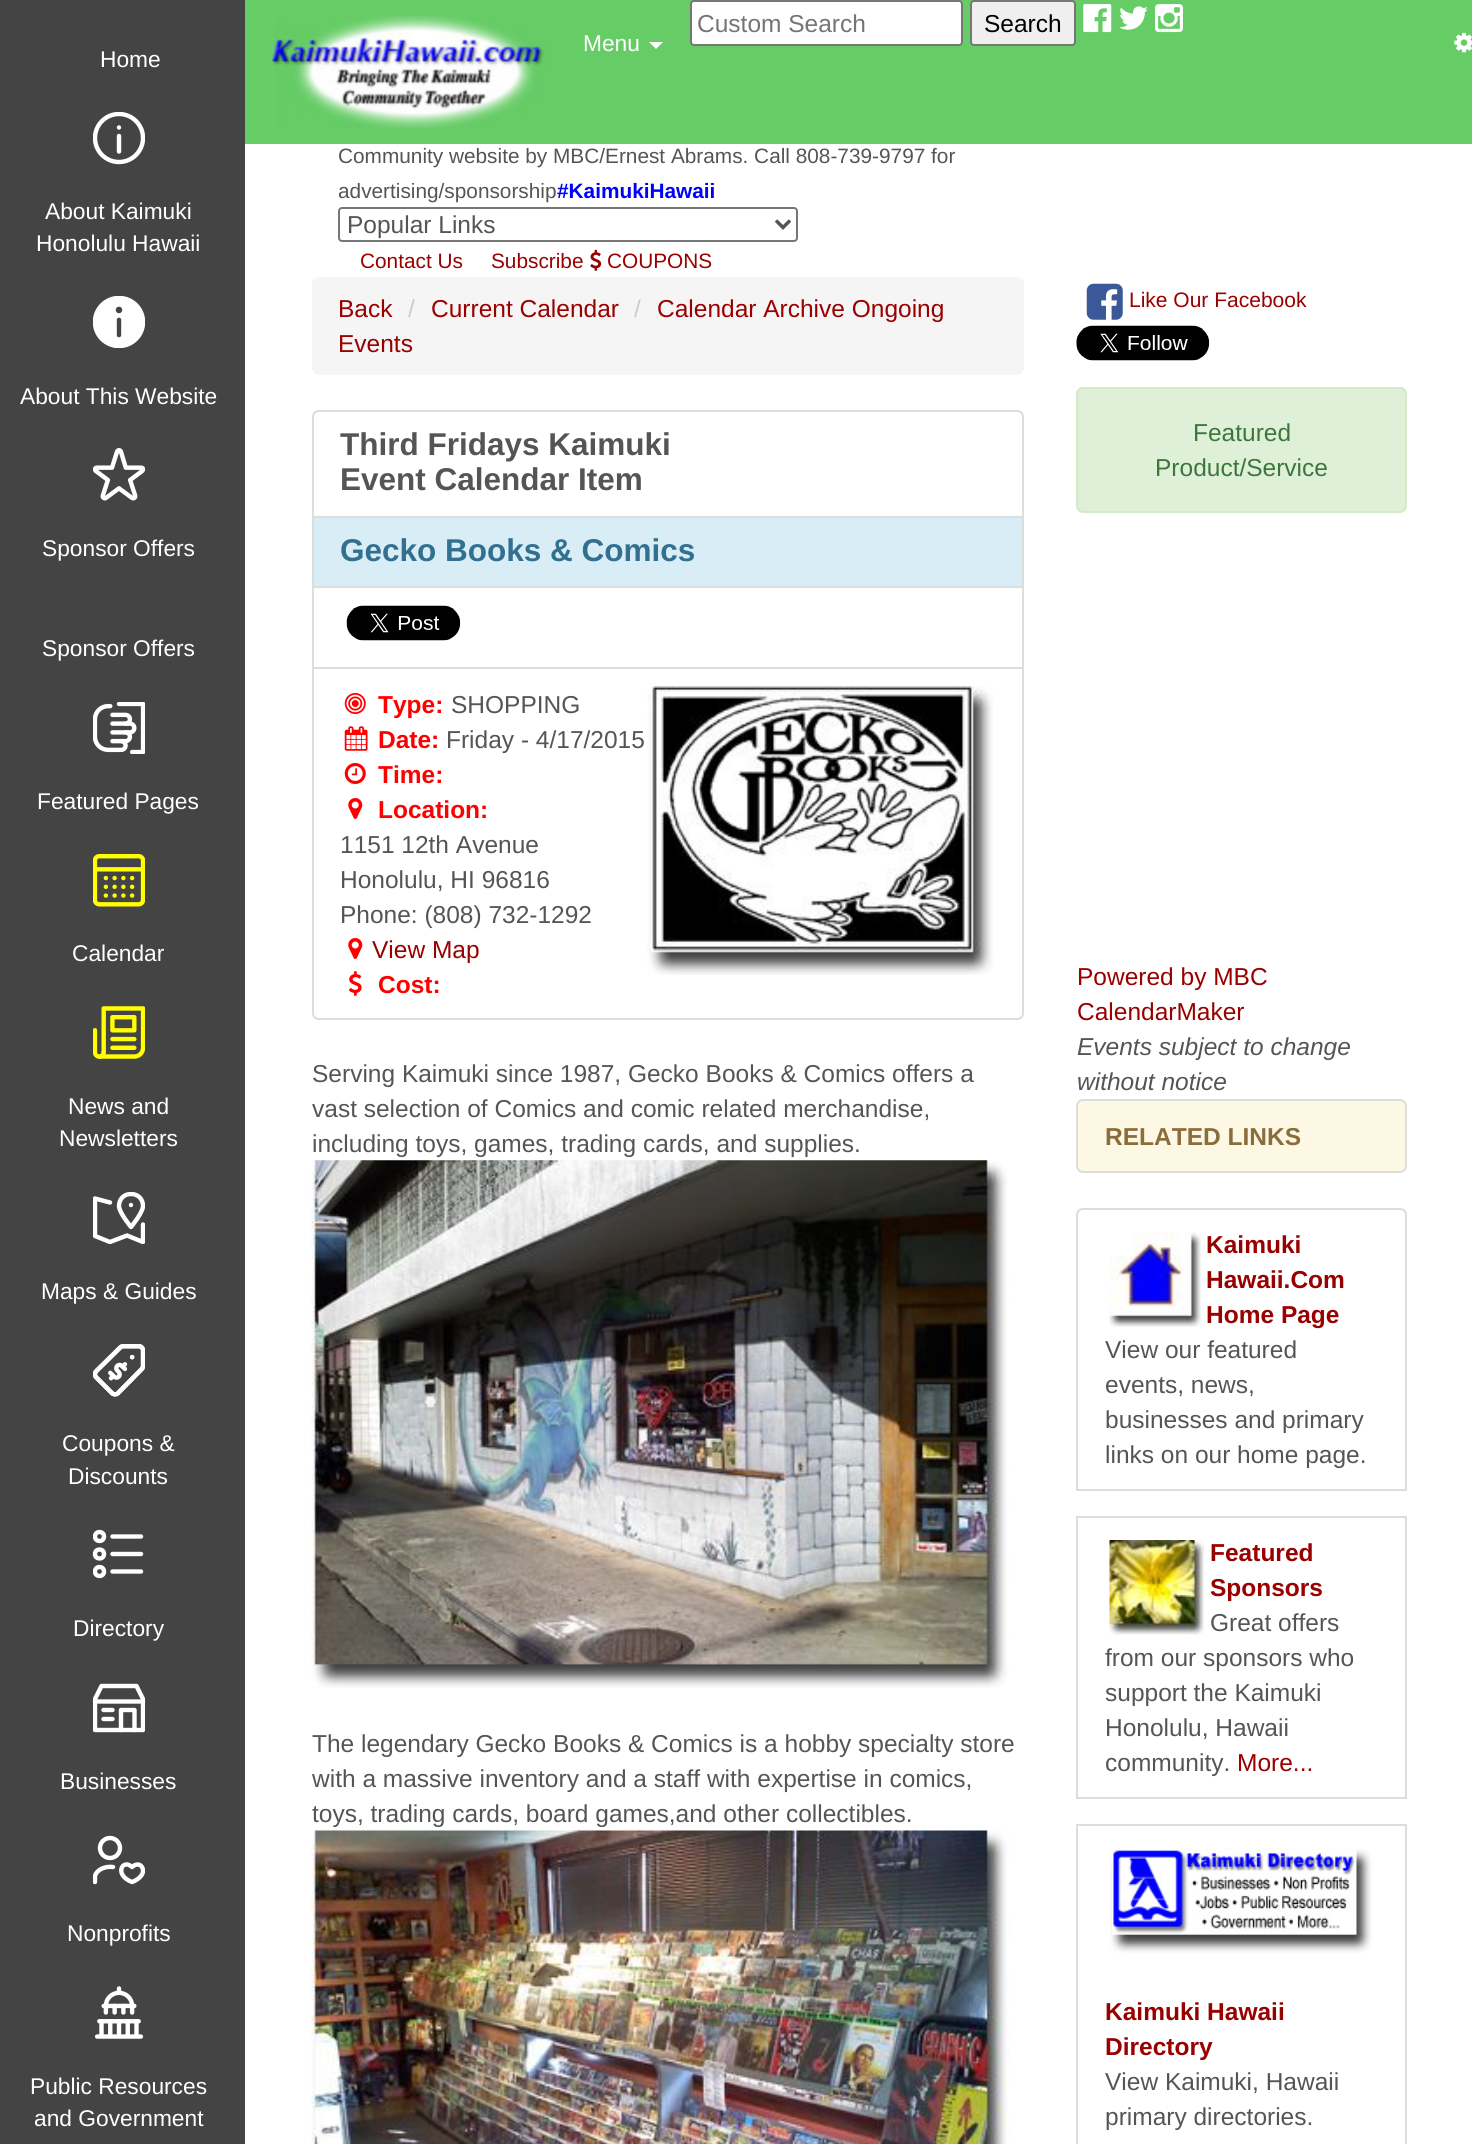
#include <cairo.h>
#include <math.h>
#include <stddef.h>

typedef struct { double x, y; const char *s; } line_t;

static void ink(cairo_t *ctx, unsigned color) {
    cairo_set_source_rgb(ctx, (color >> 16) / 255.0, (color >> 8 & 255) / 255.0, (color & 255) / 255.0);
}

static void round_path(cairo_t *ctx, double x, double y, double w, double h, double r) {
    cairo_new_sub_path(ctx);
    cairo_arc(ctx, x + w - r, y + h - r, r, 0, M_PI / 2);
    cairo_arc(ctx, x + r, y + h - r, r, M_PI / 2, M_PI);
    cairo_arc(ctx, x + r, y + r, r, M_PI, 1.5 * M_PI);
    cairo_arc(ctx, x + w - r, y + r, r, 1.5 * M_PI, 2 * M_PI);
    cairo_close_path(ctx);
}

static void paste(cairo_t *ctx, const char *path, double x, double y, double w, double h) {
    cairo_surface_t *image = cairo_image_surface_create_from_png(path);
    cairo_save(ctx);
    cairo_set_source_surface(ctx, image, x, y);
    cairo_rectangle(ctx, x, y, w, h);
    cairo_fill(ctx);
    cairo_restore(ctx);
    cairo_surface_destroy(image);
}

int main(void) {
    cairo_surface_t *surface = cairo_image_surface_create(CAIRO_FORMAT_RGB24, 1472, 2144);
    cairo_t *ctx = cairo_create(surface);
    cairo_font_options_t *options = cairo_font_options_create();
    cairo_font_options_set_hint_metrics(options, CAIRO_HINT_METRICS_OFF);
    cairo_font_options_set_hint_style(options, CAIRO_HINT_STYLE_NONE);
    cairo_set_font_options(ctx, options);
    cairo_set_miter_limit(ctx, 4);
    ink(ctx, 0x444444);
    cairo_paint(ctx);
    cairo_select_font_face(ctx, "Liberation Sans", CAIRO_FONT_SLANT_NORMAL, CAIRO_FONT_WEIGHT_NORMAL);
    cairo_set_font_size(ctx, 22.75);
    ink(ctx, 0xFFFFFF);
    cairo_move_to(ctx, 100, 67);
    cairo_show_text(ctx, "Home");
    cairo_save(ctx);
    cairo_rectangle(ctx, 93, 112, 52, 53);
    cairo_clip(ctx);
    cairo_arc(ctx, 119, 138, 24, 0, 2 * M_PI);
    cairo_set_line_width(ctx, 4.4);
    cairo_stroke(ctx);
    cairo_restore(ctx);
    cairo_new_path(ctx);
    cairo_move_to(ctx, 119, 136);
    cairo_line_to(ctx, 119, 151.5);
    cairo_move_to(ctx, 119, 127.5);
    cairo_line_to(ctx, 119, 127.5);
    cairo_set_line_width(ctx, 4.4);
    cairo_set_line_cap(ctx, CAIRO_LINE_CAP_ROUND);
    cairo_set_line_join(ctx, CAIRO_LINE_JOIN_ROUND);
    cairo_stroke(ctx);
    cairo_move_to(ctx, 45, 219);
    cairo_show_text(ctx, "About Kaimuki");
    cairo_move_to(ctx, 36, 251);
    cairo_show_text(ctx, "Honolulu Hawaii");
    paste(ctx, "media/1.png", 93, 296, 52, 52);
    cairo_move_to(ctx, 20, 404);
    cairo_show_text(ctx, "About This Website");
    paste(ctx, "media/2.png", 93, 448, 52, 53);
    cairo_move_to(ctx, 42, 556);
    cairo_show_text(ctx, "Sponsor Offers");
    cairo_move_to(ctx, 42, 656);
    cairo_show_text(ctx, "Sponsor Offers");
    paste(ctx, "media/3.png", 93, 702, 52, 52);
    cairo_move_to(ctx, 37, 809);
    cairo_show_text(ctx, "Featured Pages");
    paste(ctx, "media/4.png", 93, 854, 52, 53);
    cairo_move_to(ctx, 72, 961);
    cairo_show_text(ctx, "Calendar");
    paste(ctx, "media/5.png", 93, 1006, 52, 53);
    cairo_move_to(ctx, 68, 1114);
    cairo_show_text(ctx, "News and");
    cairo_move_to(ctx, 59, 1146);
    cairo_show_text(ctx, "Newsletters");
    cairo_save(ctx);
    cairo_rectangle(ctx, 93, 1192, 52, 52);
    cairo_clip(ctx);
    cairo_new_path(ctx);
    cairo_move_to(ctx, 110, 1202.5);
    cairo_line_to(ctx, 95, 1198.5);
    cairo_line_to(ctx, 95, 1236);
    cairo_line_to(ctx, 110, 1242);
    cairo_line_to(ctx, 127, 1235.5);
    cairo_line_to(ctx, 143, 1242);
    cairo_line_to(ctx, 143, 1224.5);
    cairo_move_to(ctx, 131, 1227);
    cairo_curve_to(ctx, 131, 1227, 143, 1212.5, 143, 1206);
    cairo_curve_to(ctx, 143, 1200, 139, 1194, 131, 1194);
    cairo_curve_to(ctx, 123, 1194, 119, 1200, 119, 1206);
    cairo_curve_to(ctx, 119, 1212.5, 131, 1227, 131, 1227);
    cairo_stroke(ctx);
    cairo_restore(ctx);
    cairo_new_path(ctx);
    cairo_move_to(ctx, 131, 1205);
    cairo_line_to(ctx, 131, 1205);
    cairo_stroke(ctx);
    cairo_move_to(ctx, 41, 1299);
    cairo_show_text(ctx, "Maps & Guides");
    paste(ctx, "media/6.png", 93, 1344, 52, 53);
    cairo_move_to(ctx, 62, 1451);
    cairo_show_text(ctx, "Coupons &");
    cairo_move_to(ctx, 68, 1484);
    cairo_show_text(ctx, "Discounts");
    cairo_new_path(ctx);
    cairo_move_to(ctx, 112.5, 1571.5);
    cairo_line_to(ctx, 141, 1571.5);
    cairo_move_to(ctx, 112.5, 1554);
    cairo_line_to(ctx, 141, 1554);
    cairo_move_to(ctx, 112.5, 1536.5);
    cairo_line_to(ctx, 141, 1536.5);
    cairo_stroke(ctx);
    cairo_save(ctx);
    cairo_rectangle(ctx, 93, 1528, 52, 52);
    cairo_clip(ctx);
    cairo_arc(ctx, 99.5, 1571.5, 4.5, 0, 2 * M_PI);
    cairo_set_line_cap(ctx, CAIRO_LINE_CAP_BUTT);
    cairo_set_line_join(ctx, CAIRO_LINE_JOIN_MITER);
    cairo_stroke(ctx);
    cairo_restore(ctx);
    cairo_arc(ctx, 99.5, 1554, 4.5, 0, 2 * M_PI);
    cairo_set_line_cap(ctx, CAIRO_LINE_CAP_BUTT);
    cairo_set_line_join(ctx, CAIRO_LINE_JOIN_MITER);
    cairo_stroke(ctx);
    cairo_save(ctx);
    cairo_rectangle(ctx, 93, 1528, 52, 52);
    cairo_clip(ctx);
    cairo_arc(ctx, 99.5, 1536.5, 4.5, 0, 2 * M_PI);
    cairo_stroke(ctx);
    cairo_restore(ctx);
    cairo_move_to(ctx, 73, 1636);
    cairo_show_text(ctx, "Directory");
    cairo_new_path(ctx);
    cairo_move_to(ctx, 95, 1701.5);
    cairo_line_to(ctx, 143, 1701.5);
    cairo_move_to(ctx, 121, 1730);
    cairo_line_to(ctx, 121, 1710);
    cairo_line_to(ctx, 134.5, 1710);
    cairo_line_to(ctx, 134.5, 1730);
    cairo_move_to(ctx, 112.5, 1719);
    cairo_line_to(ctx, 103.5, 1719);
    cairo_move_to(ctx, 112.5, 1710);
    cairo_line_to(ctx, 103.5, 1710);
    cairo_set_line_cap(ctx, CAIRO_LINE_CAP_ROUND);
    cairo_set_line_join(ctx, CAIRO_LINE_JOIN_ROUND);
    cairo_stroke(ctx);
    cairo_save(ctx);
    cairo_rectangle(ctx, 93, 1682, 52, 52);
    cairo_clip(ctx);
    cairo_new_path(ctx);
    cairo_move_to(ctx, 143, 1730);
    cairo_line_to(ctx, 143, 1699);
    cairo_line_to(ctx, 136.5, 1686);
    cairo_line_to(ctx, 101.5, 1686);
    cairo_line_to(ctx, 95, 1699);
    cairo_line_to(ctx, 95, 1730);
    cairo_close_path(ctx);
    cairo_stroke(ctx);
    cairo_restore(ctx);
    cairo_move_to(ctx, 60, 1789);
    cairo_show_text(ctx, "Businesses");
    cairo_new_path(ctx);
    cairo_arc(ctx, 110, 1848, 10, 0, 2 * M_PI);
    cairo_set_line_cap(ctx, CAIRO_LINE_CAP_BUTT);
    cairo_set_line_join(ctx, CAIRO_LINE_JOIN_MITER);
    cairo_stroke(ctx);
    cairo_save(ctx);
    cairo_rectangle(ctx, 93, 1834, 52, 53);
    cairo_clip(ctx);
    cairo_new_path(ctx);
    cairo_move_to(ctx, 113, 1867);
    cairo_curve_to(ctx, 106, 1866, 97, 1869, 95, 1876);
    cairo_line_to(ctx, 95, 1882);
    cairo_move_to(ctx, 137.5, 1864.5);
    cairo_curve_to(ctx, 135, 1864.5, 133.5, 1866, 132, 1867);
    cairo_curve_to(ctx, 122.5, 1858, 113.5, 1875, 132, 1882);
    cairo_curve_to(ctx, 136.5, 1880.5, 143, 1876, 143, 1871);
    cairo_curve_to(ctx, 143, 1867.5, 141, 1864.5, 137.5, 1864.5);
    cairo_close_path(ctx);
    cairo_set_line_cap(ctx, CAIRO_LINE_CAP_ROUND);
    cairo_set_line_join(ctx, CAIRO_LINE_JOIN_ROUND);
    cairo_stroke(ctx);
    cairo_restore(ctx);
    cairo_move_to(ctx, 67, 1941);
    cairo_show_text(ctx, "Nonprofits");
    paste(ctx, "media/7.png", 94, 1986, 50, 53);
    cairo_move_to(ctx, 30, 2094);
    cairo_show_text(ctx, "Public Resources");
    cairo_move_to(ctx, 34, 2126);
    cairo_show_text(ctx, "and Government");
    cairo_rectangle(ctx, 245, 144, 1227, 2000);
    cairo_fill(ctx);
    ink(ctx, 0x66CC66);
    cairo_rectangle(ctx, 245, 0, 1227, 144);
    cairo_fill(ctx);
    paste(ctx, "media/8.png", 271, 16, 282, 112);
    ink(ctx, 0xFFFFFF);
    round_path(ctx, 691, 1, 271, 44, 3);
    cairo_fill_preserve(ctx);
    ink(ctx, 0x767676);
    cairo_set_line_width(ctx, 2);
    cairo_stroke(ctx);
    cairo_set_font_size(ctx, 24.5);
    ink(ctx, 0x757575);
    cairo_move_to(ctx, 697, 32);
    cairo_show_text(ctx, "Custom Search");
    ink(ctx, 0xEFEFEF);
    round_path(ctx, 971, 1, 104, 44, 3);
    cairo_fill_preserve(ctx);
    ink(ctx, 0x767676);
    cairo_stroke(ctx);
    ink(ctx, 0x000000);
    cairo_move_to(ctx, 984, 32);
    cairo_show_text(ctx, "Search");
    paste(ctx, "media/9.png", 1083, 4, 29, 29);
    paste(ctx, "media/10.png", 1119, 6, 29, 24);
    paste(ctx, "media/11.png", 1155, 4, 28, 29);
    cairo_set_font_size(ctx, 22.75);
    ink(ctx, 0xFFFFFF);
    cairo_move_to(ctx, 583, 51);
    cairo_show_text(ctx, "Menu");
    cairo_new_path(ctx);
    cairo_move_to(ctx, 649, 42);
    cairo_line_to(ctx, 663, 42);
    cairo_line_to(ctx, 656, 49);
    cairo_close_path(ctx);
    cairo_fill(ctx);
    paste(ctx, "media/12.png", 1454, 32, 18, 21);
    cairo_set_font_size(ctx, 20.8);
    ink(ctx, 0x555555);
    cairo_move_to(ctx, 338, 163);
    cairo_show_text(ctx, "Community website by MBC/Ernest Abrams. Call 808-739-9797 for");
    cairo_move_to(ctx, 338, 198);
    cairo_show_text(ctx, "advertising/sponsorship");
    cairo_select_font_face(ctx, "Liberation Sans", CAIRO_FONT_SLANT_NORMAL, CAIRO_FONT_WEIGHT_BOLD);
    ink(ctx, 0x0000FF);
    cairo_move_to(ctx, 557, 198);
    cairo_show_text(ctx, "#KaimukiHawaii");
    round_path(ctx, 339, 208, 458, 33, 3);
    ink(ctx, 0x767676);
    cairo_stroke(ctx);
    cairo_new_path(ctx);
    cairo_move_to(ctx, 776, 220.5);
    cairo_line_to(ctx, 783, 227.5);
    cairo_line_to(ctx, 790, 220.5);
    ink(ctx, 0x555555);
    cairo_set_line_width(ctx, 3.5);
    cairo_stroke(ctx);
    cairo_select_font_face(ctx, "Liberation Sans", CAIRO_FONT_SLANT_NORMAL, CAIRO_FONT_WEIGHT_NORMAL);
    cairo_set_font_size(ctx, 24.5);
    cairo_move_to(ctx, 347, 233);
    cairo_show_text(ctx, "Popular Links");
    cairo_set_font_size(ctx, 20.8);
    ink(ctx, 0x990000);
    cairo_move_to(ctx, 360, 268);
    cairo_show_text(ctx, "Contact Us");
    cairo_move_to(ctx, 491, 268);
    cairo_show_text(ctx, "Subscribe");
    paste(ctx, "media/13.png", 590, 249, 12, 22);
    cairo_move_to(ctx, 607, 268);
    cairo_show_text(ctx, "COUPONS");
    ink(ctx, 0xF5F5F5);
    round_path(ctx, 312, 277, 712, 98, 7);
    cairo_fill(ctx);
    cairo_set_font_size(ctx, 24.5);
    ink(ctx, 0x990000);
    cairo_move_to(ctx, 338, 317);
    cairo_show_text(ctx, "Back");
    ink(ctx, 0xCCCCCC);
    cairo_move_to(ctx, 408, 317);
    cairo_show_text(ctx, "/");
    ink(ctx, 0x990000);
    cairo_move_to(ctx, 431, 317);
    cairo_show_text(ctx, "Current Calendar");
    ink(ctx, 0xCCCCCC);
    cairo_move_to(ctx, 634, 317);
    cairo_show_text(ctx, "/");
    ink(ctx, 0x990000);
    cairo_move_to(ctx, 657, 317);
    cairo_show_text(ctx, "Calendar Archive Ongoing");
    cairo_move_to(ctx, 338, 352);
    cairo_show_text(ctx, "Events");
    cairo_new_path(ctx);
    cairo_move_to(ctx, 319, 411);
    cairo_line_to(ctx, 1017, 411);
    cairo_curve_to(ctx, 1020.5, 411, 1023, 413.5, 1023, 417);
    cairo_line_to(ctx, 1023, 517);
    cairo_line_to(ctx, 313, 517);
    cairo_line_to(ctx, 313, 417);
    cairo_curve_to(ctx, 313, 413.5, 315.5, 411, 319, 411);
    cairo_close_path(ctx);
    ink(ctx, 0xDDDDDD);
    cairo_set_line_width(ctx, 2);
    cairo_stroke(ctx);
    cairo_select_font_face(ctx, "Liberation Sans", CAIRO_FONT_SLANT_NORMAL, CAIRO_FONT_WEIGHT_BOLD);
    cairo_set_font_size(ctx, 31.5);
    ink(ctx, 0x555555);
    cairo_move_to(ctx, 340, 455);
    cairo_show_text(ctx, "Third Fridays Kaimuki");
    cairo_move_to(ctx, 340, 490);
    cairo_show_text(ctx, "Event Calendar Item");
    ink(ctx, 0xD9EDF7);
    cairo_rectangle(ctx, 313, 517, 710, 70);
    cairo_fill_preserve(ctx);
    ink(ctx, 0xDDDDDD);
    cairo_stroke(ctx);
    ink(ctx, 0x31708F);
    cairo_move_to(ctx, 340, 561);
    cairo_show_text(ctx, "Gecko Books & Comics");
    cairo_rectangle(ctx, 313, 587, 710, 81);
    ink(ctx, 0xDDDDDD);
    cairo_stroke(ctx);
    paste(ctx, "media/14.png", 346, 605, 115, 36);
    ink(ctx, 0xFFFFFF);
    cairo_new_path(ctx);
    cairo_move_to(ctx, 313, 668);
    cairo_line_to(ctx, 1023, 668);
    cairo_line_to(ctx, 1023, 1013);
    cairo_curve_to(ctx, 1023, 1016.5, 1020.5, 1019, 1017, 1019);
    cairo_line_to(ctx, 319, 1019);
    cairo_curve_to(ctx, 315.5, 1019, 313, 1016.5, 313, 1013);
    cairo_close_path(ctx);
    cairo_fill_preserve(ctx);
    ink(ctx, 0xDDDDDD);
    cairo_stroke(ctx);
    paste(ctx, "media/15.png", 344, 693, 22, 21);
    cairo_set_font_size(ctx, 24.5);
    ink(ctx, 0xFF0000);
    cairo_move_to(ctx, 378, 713);
    cairo_show_text(ctx, "Type:");
    cairo_select_font_face(ctx, "Liberation Sans", CAIRO_FONT_SLANT_NORMAL, CAIRO_FONT_WEIGHT_NORMAL);
    ink(ctx, 0x555555);
    cairo_move_to(ctx, 451, 713);
    cairo_show_text(ctx, "SHOPPING");
    paste(ctx, "media/16.png", 647, 686, 346, 289);
    paste(ctx, "media/17.png", 344, 726, 24, 25);
    cairo_select_font_face(ctx, "Liberation Sans", CAIRO_FONT_SLANT_NORMAL, CAIRO_FONT_WEIGHT_BOLD);
    ink(ctx, 0xFF0000);
    cairo_move_to(ctx, 378, 748);
    cairo_show_text(ctx, "Date:");
    cairo_select_font_face(ctx, "Liberation Sans", CAIRO_FONT_SLANT_NORMAL, CAIRO_FONT_WEIGHT_NORMAL);
    ink(ctx, 0x555555);
    cairo_move_to(ctx, 446, 748);
    cairo_show_text(ctx, "Friday - 4/17/2015");
    paste(ctx, "media/18.png", 344, 763, 22, 21);
    cairo_select_font_face(ctx, "Liberation Sans", CAIRO_FONT_SLANT_NORMAL, CAIRO_FONT_WEIGHT_BOLD);
    ink(ctx, 0xFF0000);
    cairo_move_to(ctx, 378, 783);
    cairo_show_text(ctx, "Time:");
    paste(ctx, "media/19.png", 348, 798, 15, 21);
    cairo_move_to(ctx, 378, 818);
    cairo_show_text(ctx, "Location:");
    cairo_select_font_face(ctx, "Liberation Sans", CAIRO_FONT_SLANT_NORMAL, CAIRO_FONT_WEIGHT_NORMAL);
    ink(ctx, 0x555555);
    {
        static const line_t items[] = {
            {340, 853, "1151 12th Avenue"},
            {340, 888, "Honolulu, HI 96816"},
            {340, 923, "Phone: (808) 732-1292"},
        };
        for (size_t i = 0; i < sizeof items / sizeof *items; i++) {
            cairo_move_to(ctx, items[i].x, items[i].y);
            cairo_show_text(ctx, items[i].s);
        }
    }
    paste(ctx, "media/19.png", 348, 938, 15, 21);
    ink(ctx, 0x990000);
    cairo_move_to(ctx, 372, 958);
    cairo_show_text(ctx, "View Map");
    paste(ctx, "media/20.png", 348, 971, 14, 25);
    cairo_select_font_face(ctx, "Liberation Sans", CAIRO_FONT_SLANT_NORMAL, CAIRO_FONT_WEIGHT_BOLD);
    ink(ctx, 0xFF0000);
    cairo_move_to(ctx, 378, 993);
    cairo_show_text(ctx, "Cost:");
    cairo_select_font_face(ctx, "Liberation Sans", CAIRO_FONT_SLANT_NORMAL, CAIRO_FONT_WEIGHT_NORMAL);
    ink(ctx, 0x555555);
    {
        static const line_t items[] = {
            {312, 1082, "Serving Kaimuki since 1987, Gecko Books & Comics offers a"},
            {312, 1117, "vast selection of Comics and comic related merchandise,"},
            {312, 1152, "including toys, games, trading cards, and supplies."},
        };
        for (size_t i = 0; i < sizeof items / sizeof *items; i++) {
            cairo_move_to(ctx, items[i].x, items[i].y);
            cairo_show_text(ctx, items[i].s);
        }
    }
    paste(ctx, "media/21.png", 311, 1160, 698, 528);
    {
        static const line_t items[] = {
            {312, 1752, "The legendary Gecko Books & Comics is a hobby specialty store"},
            {312, 1787, "with a massive inventory and a staff with expertise in comics,"},
            {312, 1822, "toys, trading cards, board games,and other collectibles."},
        };
        for (size_t i = 0; i < sizeof items / sizeof *items; i++) {
            cairo_move_to(ctx, items[i].x, items[i].y);
            cairo_show_text(ctx, items[i].s);
        }
    }
    paste(ctx, "media/22.png", 311, 1830, 699, 314);
    paste(ctx, "media/23.png", 1086, 283, 37, 37);
    cairo_set_font_size(ctx, 21);
    ink(ctx, 0x990000);
    cairo_move_to(ctx, 1129, 307);
    cairo_show_text(ctx, "Like Our Facebook");
    paste(ctx, "media/24.png", 1076, 325, 134, 36);
    ink(ctx, 0xDFF0D8);
    round_path(ctx, 1077, 388, 329, 124, 6);
    cairo_fill_preserve(ctx);
    ink(ctx, 0xD6E9C6);
    cairo_stroke(ctx);
    cairo_set_font_size(ctx, 24.5);
    ink(ctx, 0x3C763D);
    cairo_move_to(ctx, 1193, 441);
    cairo_show_text(ctx, "Featured");
    cairo_move_to(ctx, 1155, 476);
    cairo_show_text(ctx, "Product/Service");
    ink(ctx, 0x990000);
    cairo_move_to(ctx, 1077, 985);
    cairo_show_text(ctx, "Powered by MBC");
    cairo_move_to(ctx, 1077, 1020);
    cairo_show_text(ctx, "CalendarMaker");
    cairo_select_font_face(ctx, "Liberation Sans", CAIRO_FONT_SLANT_ITALIC, CAIRO_FONT_WEIGHT_NORMAL);
    ink(ctx, 0x555555);
    cairo_move_to(ctx, 1077, 1055);
    cairo_show_text(ctx, "Events subject to change");
    cairo_move_to(ctx, 1077, 1090);
    cairo_show_text(ctx, "without notice");
    ink(ctx, 0xFCF8E3);
    round_path(ctx, 1077, 1100, 329, 72, 6);
    cairo_fill_preserve(ctx);
    ink(ctx, 0xDDDDDD);
    cairo_stroke(ctx);
    cairo_select_font_face(ctx, "Liberation Sans", CAIRO_FONT_SLANT_NORMAL, CAIRO_FONT_WEIGHT_BOLD);
    ink(ctx, 0x8A6D3B);
    cairo_move_to(ctx, 1105, 1145);
    cairo_show_text(ctx, "RELATED LINKS");
    cairo_new_path(ctx);
    cairo_move_to(ctx, 1083, 1209);
    cairo_line_to(ctx, 1400, 1209);
    cairo_curve_to(ctx, 1403.5, 1209, 1406, 1211.5, 1406, 1215);
    cairo_line_to(ctx, 1406, 1490);
    cairo_line_to(ctx, 1077, 1490);
    cairo_line_to(ctx, 1077, 1215);
    cairo_curve_to(ctx, 1077, 1211.5, 1079.5, 1209, 1083, 1209);
    cairo_close_path(ctx);
    ink(ctx, 0xDDDDDD);
    cairo_stroke(ctx);
    paste(ctx, "media/25.png", 1109, 1232, 92, 95);
    ink(ctx, 0x990000);
    {
        static const line_t items[] = {
            {1206, 1253, "Kaimuki"},
            {1206, 1288, "Hawaii.Com"},
            {1206, 1323, "Home Page"},
        };
        for (size_t i = 0; i < sizeof items / sizeof *items; i++) {
            cairo_move_to(ctx, items[i].x, items[i].y);
            cairo_show_text(ctx, items[i].s);
        }
    }
    cairo_select_font_face(ctx, "Liberation Sans", CAIRO_FONT_SLANT_NORMAL, CAIRO_FONT_WEIGHT_NORMAL);
    ink(ctx, 0x555555);
    {
        static const line_t items[] = {
            {1105, 1358, "View our featured"},
            {1105, 1393, "events, news,"},
            {1105, 1428, "businesses and primary"},
            {1105, 1463, "links on our home page."},
        };
        for (size_t i = 0; i < sizeof items / sizeof *items; i++) {
            cairo_move_to(ctx, items[i].x, items[i].y);
            cairo_show_text(ctx, items[i].s);
        }
    }
    cairo_rectangle(ctx, 1077, 1517, 329, 281);
    ink(ctx, 0xDDDDDD);
    cairo_stroke(ctx);
    paste(ctx, "media/26.png", 1109, 1540, 95, 95);
    cairo_select_font_face(ctx, "Liberation Sans", CAIRO_FONT_SLANT_NORMAL, CAIRO_FONT_WEIGHT_BOLD);
    ink(ctx, 0x990000);
    cairo_move_to(ctx, 1210, 1561);
    cairo_show_text(ctx, "Featured");
    cairo_move_to(ctx, 1210, 1596);
    cairo_show_text(ctx, "Sponsors");
    cairo_select_font_face(ctx, "Liberation Sans", CAIRO_FONT_SLANT_NORMAL, CAIRO_FONT_WEIGHT_NORMAL);
    ink(ctx, 0x555555);
    {
        static const line_t items[] = {
            {1210, 1631, "Great offers"},
            {1105, 1666, "from our sponsors who"},
            {1105, 1701, "support the Kaimuki"},
            {1105, 1736, "Honolulu, Hawaii"},
            {1105, 1771, "community."},
        };
        for (size_t i = 0; i < sizeof items / sizeof *items; i++) {
            cairo_move_to(ctx, items[i].x, items[i].y);
            cairo_show_text(ctx, items[i].s);
        }
    }
    ink(ctx, 0x990000);
    cairo_move_to(ctx, 1237, 1771);
    cairo_show_text(ctx, "More...");
    cairo_rectangle(ctx, 1077, 1825, 329, 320);
    ink(ctx, 0xDDDDDD);
    cairo_stroke(ctx);
    paste(ctx, "media/27.png", 1109, 1848, 263, 105);
    cairo_select_font_face(ctx, "Liberation Sans", CAIRO_FONT_SLANT_NORMAL, CAIRO_FONT_WEIGHT_BOLD);
    ink(ctx, 0x990000);
    cairo_move_to(ctx, 1105, 2020);
    cairo_show_text(ctx, "Kaimuki Hawaii");
    cairo_move_to(ctx, 1105, 2055);
    cairo_show_text(ctx, "Directory");
    cairo_select_font_face(ctx, "Liberation Sans", CAIRO_FONT_SLANT_NORMAL, CAIRO_FONT_WEIGHT_NORMAL);
    ink(ctx, 0x555555);
    cairo_move_to(ctx, 1105, 2090);
    cairo_show_text(ctx, "View Kaimuki, Hawaii");
    cairo_move_to(ctx, 1105, 2125);
    cairo_show_text(ctx, "primary directories.");
    cairo_surface_write_to_png(surface, "image.png");
    cairo_font_options_destroy(options);
    cairo_destroy(ctx);
    cairo_surface_destroy(surface);
    return 0;
}
